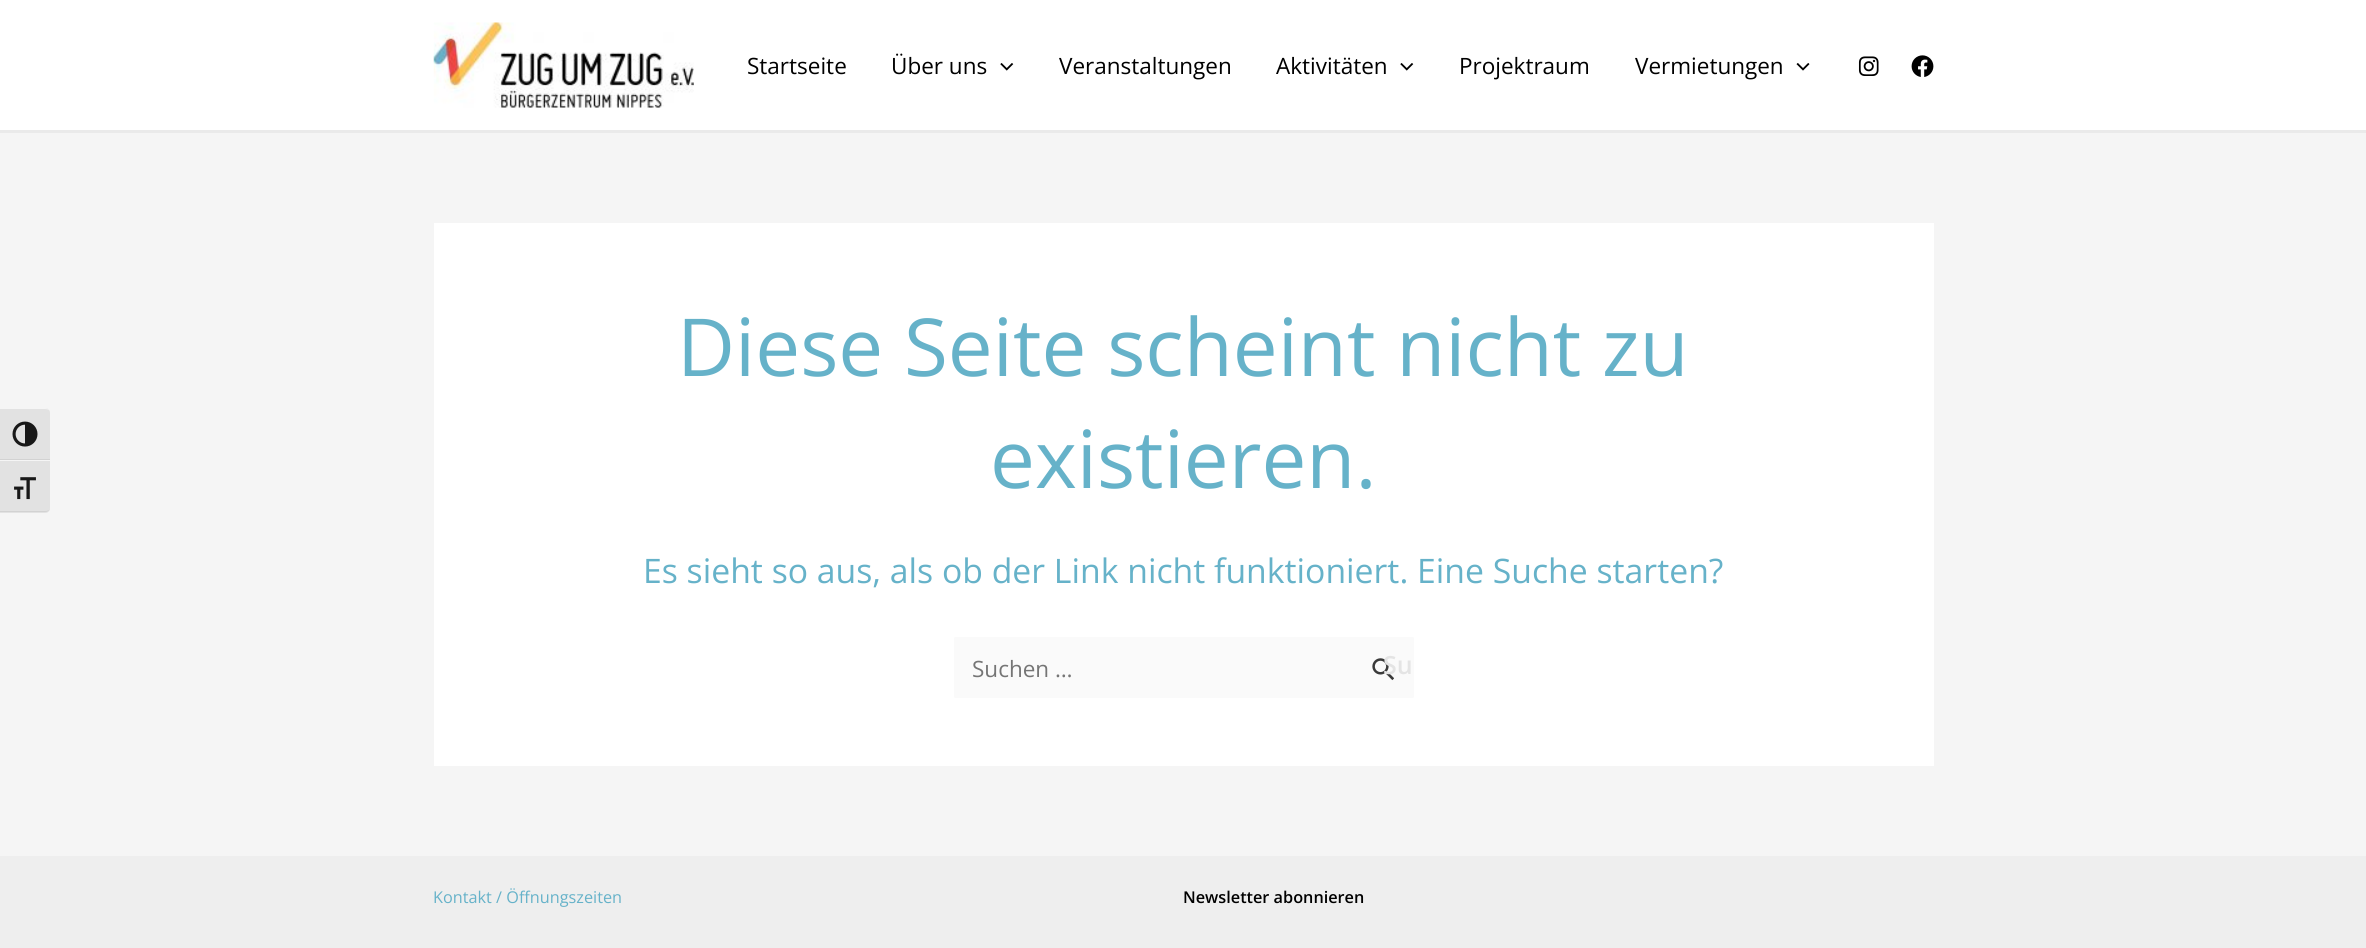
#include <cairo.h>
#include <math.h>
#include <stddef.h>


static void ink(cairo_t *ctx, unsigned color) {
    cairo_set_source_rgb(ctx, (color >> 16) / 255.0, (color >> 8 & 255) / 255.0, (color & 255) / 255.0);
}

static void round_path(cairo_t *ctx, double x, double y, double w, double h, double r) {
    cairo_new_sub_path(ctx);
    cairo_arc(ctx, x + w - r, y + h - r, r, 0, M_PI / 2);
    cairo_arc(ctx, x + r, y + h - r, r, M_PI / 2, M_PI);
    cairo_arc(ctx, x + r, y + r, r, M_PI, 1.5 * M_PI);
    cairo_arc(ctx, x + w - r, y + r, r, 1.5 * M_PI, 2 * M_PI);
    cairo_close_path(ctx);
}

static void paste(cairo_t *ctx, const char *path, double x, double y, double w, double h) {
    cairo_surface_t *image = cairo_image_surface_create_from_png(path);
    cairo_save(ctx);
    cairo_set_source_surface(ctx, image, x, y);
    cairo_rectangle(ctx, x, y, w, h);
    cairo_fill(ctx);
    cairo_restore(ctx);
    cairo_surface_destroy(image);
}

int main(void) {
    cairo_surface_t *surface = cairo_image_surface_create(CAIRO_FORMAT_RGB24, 2366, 948);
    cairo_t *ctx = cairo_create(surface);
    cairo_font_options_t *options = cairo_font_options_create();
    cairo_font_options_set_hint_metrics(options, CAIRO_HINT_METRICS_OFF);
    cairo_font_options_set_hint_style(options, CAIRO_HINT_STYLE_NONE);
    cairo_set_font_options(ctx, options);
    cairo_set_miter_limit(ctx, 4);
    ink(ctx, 0xF5F5F5);
    cairo_paint(ctx);
    ink(ctx, 0xE2E2E2);
    cairo_new_path(ctx);
    cairo_move_to(ctx, 0, 408);
    cairo_line_to(ctx, 45, 408);
    cairo_curve_to(ctx, 48, 408, 50, 410, 50, 413);
    cairo_line_to(ctx, 50, 460);
    cairo_line_to(ctx, 0, 460);
    cairo_close_path(ctx);
    cairo_fill(ctx);
    ink(ctx, 0xF5F5F5);
    cairo_new_path(ctx);
    cairo_move_to(ctx, 0, 409);
    cairo_line_to(ctx, 45, 409);
    cairo_curve_to(ctx, 48, 409, 50, 410, 50, 412);
    cairo_curve_to(ctx, 50, 410, 48, 408, 45, 408);
    cairo_line_to(ctx, 0, 408);
    cairo_close_path(ctx);
    cairo_fill(ctx);
    ink(ctx, 0xD2D2D2);
    cairo_rectangle(ctx, 0, 459, 50, 1);
    cairo_fill(ctx);
    paste(ctx, "media/1.png", 12, 421, 26, 26);
    ink(ctx, 0xE2E2E2);
    cairo_new_path(ctx);
    cairo_move_to(ctx, 0, 460);
    cairo_line_to(ctx, 50, 460);
    cairo_line_to(ctx, 50, 508);
    cairo_curve_to(ctx, 50, 511, 48, 513, 45, 513);
    cairo_line_to(ctx, 0, 513);
    cairo_close_path(ctx);
    cairo_fill(ctx);
    ink(ctx, 0xF5F5F5);
    cairo_rectangle(ctx, 0, 460, 50, 1);
    cairo_fill(ctx);
    ink(ctx, 0xD2D2D2);
    cairo_new_path(ctx);
    cairo_move_to(ctx, 0, 511);
    cairo_line_to(ctx, 0, 512);
    cairo_line_to(ctx, 45, 512);
    cairo_curve_to(ctx, 48, 512, 50, 510, 50, 508);
    cairo_curve_to(ctx, 50, 510, 48, 511, 45, 511);
    cairo_close_path(ctx);
    cairo_fill(ctx);
    paste(ctx, "media/2.png", 14, 477, 22, 23);
    ink(ctx, 0xFFFFFF);
    cairo_rectangle(ctx, 0, 0, 2366, 130);
    cairo_fill(ctx);
    ink(ctx, 0xEAEAEA);
    cairo_rectangle(ctx, 0, 130, 2366, 3);
    cairo_fill(ctx);
    paste(ctx, "media/3.png", 433, 22, 261, 86);
    cairo_select_font_face(ctx, "Open Sans", CAIRO_FONT_SLANT_NORMAL, CAIRO_FONT_WEIGHT_NORMAL);
    cairo_set_font_size(ctx, 22.5);
    ink(ctx, 0x000000);
    cairo_move_to(ctx, 747, 74);
    cairo_show_text(ctx, "Startseite");
    cairo_move_to(ctx, 891, 74);
    cairo_show_text(ctx, "Über uns");
    paste(ctx, "media/4.png", 1000, 63, 14, 8);
    cairo_move_to(ctx, 1059, 74);
    cairo_show_text(ctx, "Veranstaltungen");
    cairo_move_to(ctx, 1276, 74);
    cairo_show_text(ctx, "Aktivitäten");
    paste(ctx, "media/5.png", 1400, 63, 14, 8);
    cairo_move_to(ctx, 1459, 74);
    cairo_show_text(ctx, "Projektraum");
    cairo_move_to(ctx, 1635, 74);
    cairo_show_text(ctx, "Vermietungen");
    paste(ctx, "media/6.png", 1796, 63, 14, 8);
    paste(ctx, "media/7.png", 1858, 56, 21, 20);
    paste(ctx, "media/8.png", 1911, 55, 23, 22);
    ink(ctx, 0xFFFFFF);
    cairo_rectangle(ctx, 434, 223, 1500, 543);
    cairo_fill(ctx);
    cairo_set_font_size(ctx, 80);
    ink(ctx, 0x66B2C9);
    cairo_move_to(ctx, 677, 376);
    cairo_show_text(ctx, "Diese Seite scheint nicht zu");
    cairo_move_to(ctx, 990, 488);
    cairo_show_text(ctx, "existieren.");
    cairo_set_font_size(ctx, 33.75);
    cairo_move_to(ctx, 643, 583);
    cairo_show_text(ctx, "Es sieht so aus, als ob der Link nicht funktioniert. Eine Suche starten?");
    ink(ctx, 0xFAFAFA);
    round_path(ctx, 953.5, 636.5, 461, 62, 2);
    cairo_fill_preserve(ctx);
    ink(ctx, 0xFFFFFF);
    cairo_set_line_width(ctx, 1);
    cairo_stroke(ctx);
    cairo_set_font_size(ctx, 22.5);
    ink(ctx, 0x757575);
    cairo_move_to(ctx, 972, 677);
    cairo_show_text(ctx, "Suchen …");
    paste(ctx, "media/9.png", 1372, 658, 22, 23);
    cairo_select_font_face(ctx, "Open Sans SemiBold", CAIRO_FONT_SLANT_NORMAL, CAIRO_FONT_WEIGHT_NORMAL);
    cairo_set_font_size(ctx, 25);
    ink(ctx, 0xE4E4E4);
    cairo_move_to(ctx, 1383, 674);
    cairo_show_text(ctx, "Su");
    ink(ctx, 0xEEEEEE);
    cairo_rectangle(ctx, 0, 856, 2366, 92);
    cairo_fill(ctx);
    cairo_select_font_face(ctx, "Open Sans", CAIRO_FONT_SLANT_NORMAL, CAIRO_FONT_WEIGHT_NORMAL);
    cairo_set_font_size(ctx, 16.25);
    ink(ctx, 0x66B2C9);
    cairo_move_to(ctx, 433, 903);
    cairo_show_text(ctx, "Kontakt / Öffnungszeiten");
    cairo_select_font_face(ctx, "Open Sans SemiBold", CAIRO_FONT_SLANT_NORMAL, CAIRO_FONT_WEIGHT_NORMAL);
    ink(ctx, 0x000000);
    cairo_move_to(ctx, 1183, 903);
    cairo_show_text(ctx, "Newsletter abonnieren");
    cairo_surface_write_to_png(surface, "image.png");
    cairo_font_options_destroy(options);
    cairo_destroy(ctx);
    cairo_surface_destroy(surface);
    return 0;
}
